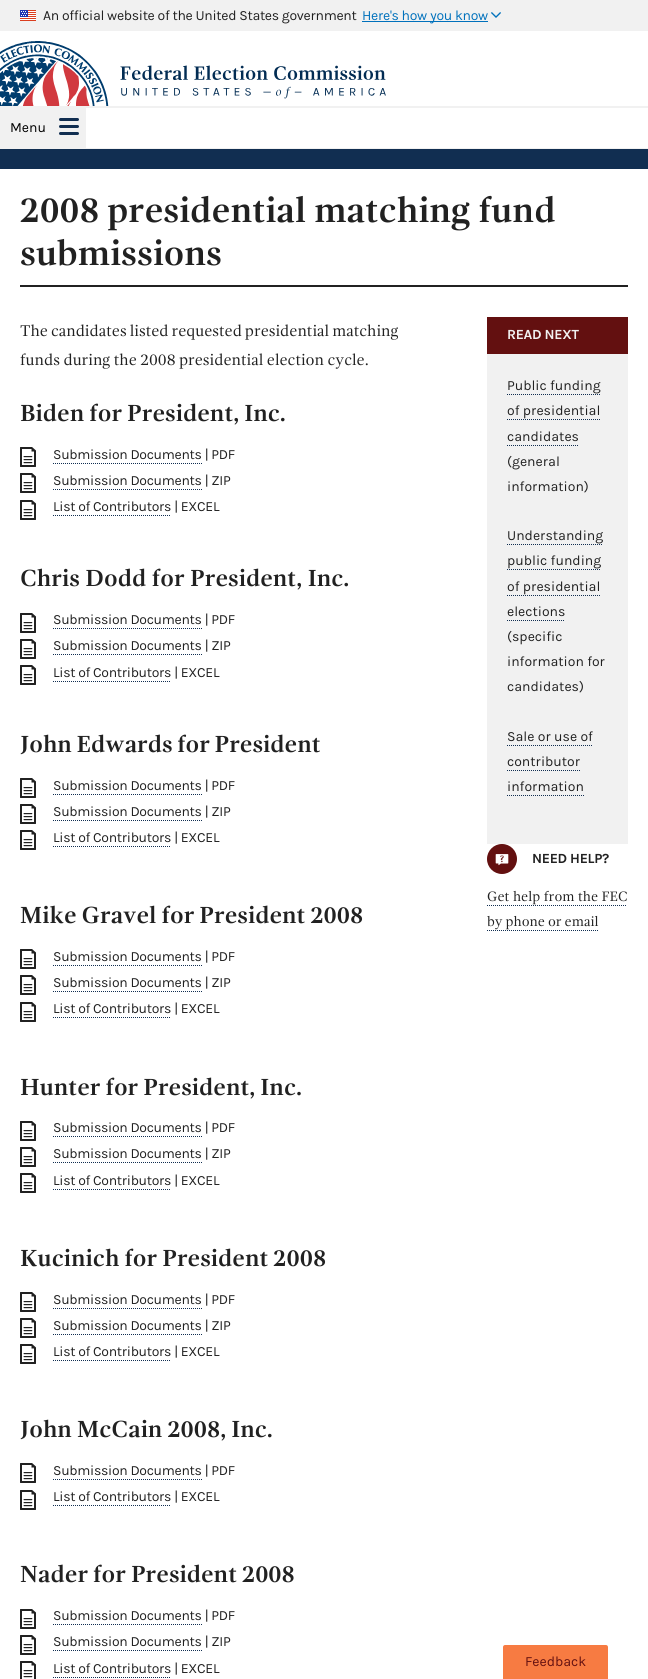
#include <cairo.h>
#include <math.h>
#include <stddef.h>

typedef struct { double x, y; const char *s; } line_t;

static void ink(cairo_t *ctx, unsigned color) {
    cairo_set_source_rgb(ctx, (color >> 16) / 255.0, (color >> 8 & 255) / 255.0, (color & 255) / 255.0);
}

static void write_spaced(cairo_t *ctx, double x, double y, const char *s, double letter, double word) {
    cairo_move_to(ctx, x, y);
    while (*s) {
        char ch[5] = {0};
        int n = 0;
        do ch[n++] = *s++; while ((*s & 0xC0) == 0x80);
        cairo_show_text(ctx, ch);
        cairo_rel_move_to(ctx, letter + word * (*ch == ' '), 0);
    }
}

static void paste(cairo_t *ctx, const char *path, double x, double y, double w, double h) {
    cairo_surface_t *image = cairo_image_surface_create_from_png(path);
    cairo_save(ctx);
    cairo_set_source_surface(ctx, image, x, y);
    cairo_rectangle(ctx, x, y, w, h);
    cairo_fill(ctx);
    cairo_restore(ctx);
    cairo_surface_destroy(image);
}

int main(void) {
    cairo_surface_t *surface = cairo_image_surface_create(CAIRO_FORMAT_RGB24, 648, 1679);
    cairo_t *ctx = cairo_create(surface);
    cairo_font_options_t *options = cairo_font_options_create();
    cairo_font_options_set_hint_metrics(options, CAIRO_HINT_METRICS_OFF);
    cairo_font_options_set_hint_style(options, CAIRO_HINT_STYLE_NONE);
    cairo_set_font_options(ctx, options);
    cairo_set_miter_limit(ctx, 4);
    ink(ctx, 0xFFFFFF);
    cairo_paint(ctx);
    ink(ctx, 0xF1F1F1);
    cairo_rectangle(ctx, 0, 0, 648, 31);
    cairo_fill(ctx);
    paste(ctx, "media/1.png", 20, 10, 16, 11);
    cairo_select_font_face(ctx, "Karla", CAIRO_FONT_SLANT_NORMAL, CAIRO_FONT_WEIGHT_NORMAL);
    cairo_set_font_size(ctx, 14);
    ink(ctx, 0x212121);
    write_spaced(ctx, 43, 20, "An official website of the United States government", -0.3, 0);
    ink(ctx, 0x0071BC);
    cairo_rectangle(ctx, 362, 21, 126, 1);
    cairo_fill(ctx);
    write_spaced(ctx, 362, 20, "Here's how you know", -0.3, 0);
    paste(ctx, "media/2.png", 491, 12, 10, 6);
    ink(ctx, 0xF1F1F1);
    cairo_rectangle(ctx, 0, 148, 648, 1);
    cairo_fill(ctx);
    paste(ctx, "media/3.png", 0, 41, 109, 65);
    cairo_rectangle(ctx, 0, 106, 648, 2);
    cairo_fill(ctx);
    paste(ctx, "media/4.png", 120, 65, 266, 34);
    cairo_rectangle(ctx, 0, 108, 86, 40);
    cairo_fill(ctx);
    paste(ctx, "media/5.png", 59, 118, 20, 17);
    ink(ctx, 0x000000);
    cairo_move_to(ctx, 10, 132);
    cairo_show_text(ctx, "Menu");
    ink(ctx, 0x112E51);
    cairo_rectangle(ctx, 0, 149, 648, 20);
    cairo_fill(ctx);
    ink(ctx, 0x212121);
    cairo_rectangle(ctx, 20, 285, 608, 2);
    cairo_fill(ctx);
    cairo_select_font_face(ctx, "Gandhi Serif", CAIRO_FONT_SLANT_NORMAL, CAIRO_FONT_WEIGHT_BOLD);
    cairo_set_font_size(ctx, 36);
    write_spaced(ctx, 20, 222, "2008 presidential matching fund", 0, -1);
    cairo_move_to(ctx, 20, 265);
    cairo_show_text(ctx, "submissions");
    cairo_select_font_face(ctx, "Gandhi Serif", CAIRO_FONT_SLANT_NORMAL, CAIRO_FONT_WEIGHT_NORMAL);
    cairo_set_font_size(ctx, 16);
    write_spaced(ctx, 20, 336, "The candidates listed requested presidential matching", 0, -1);
    write_spaced(ctx, 20, 365, "funds during the 2008 presidential election cycle.", 0, -0.5);
    cairo_select_font_face(ctx, "Gandhi Serif", CAIRO_FONT_SLANT_NORMAL, CAIRO_FONT_WEIGHT_BOLD);
    cairo_set_font_size(ctx, 24);
    write_spaced(ctx, 20, 421, "Biden for President, Inc.", 0, -1);
    paste(ctx, "media/6.png", 20, 447, 16, 20);
    cairo_select_font_face(ctx, "Karla", CAIRO_FONT_SLANT_NORMAL, CAIRO_FONT_WEIGHT_NORMAL);
    cairo_set_font_size(ctx, 14);
    write_spaced(ctx, 53, 459, "Submission Documents | PDF", -0.3, 0);
    cairo_new_path(ctx);
    cairo_move_to(ctx, 53, 463.5);
    cairo_line_to(ctx, 202, 463.5);
    ink(ctx, 0x112E51);
    cairo_set_line_width(ctx, 1);
    cairo_set_dash(ctx, (double[]){1, 1}, 2, 0);
    cairo_stroke(ctx);
    paste(ctx, "media/6.png", 20, 473, 16, 20);
    ink(ctx, 0x212121);
    write_spaced(ctx, 53, 485, "Submission Documents | ZIP", -0.3, 0);
    cairo_new_path(ctx);
    cairo_move_to(ctx, 53, 489.5);
    cairo_line_to(ctx, 202, 489.5);
    ink(ctx, 0x112E51);
    cairo_stroke(ctx);
    paste(ctx, "media/6.png", 20, 500, 16, 20);
    ink(ctx, 0x212121);
    write_spaced(ctx, 53, 511, "List of Contributors | EXCEL", -0.3, 0);
    cairo_new_path(ctx);
    cairo_move_to(ctx, 53, 515.5);
    cairo_line_to(ctx, 171, 515.5);
    ink(ctx, 0x112E51);
    cairo_stroke(ctx);
    cairo_select_font_face(ctx, "Gandhi Serif", CAIRO_FONT_SLANT_NORMAL, CAIRO_FONT_WEIGHT_BOLD);
    cairo_set_font_size(ctx, 24);
    ink(ctx, 0x212121);
    write_spaced(ctx, 20, 586, "Chris Dodd for President, Inc.", 0, -0.5);
    paste(ctx, "media/6.png", 20, 613, 16, 20);
    cairo_select_font_face(ctx, "Karla", CAIRO_FONT_SLANT_NORMAL, CAIRO_FONT_WEIGHT_NORMAL);
    cairo_set_font_size(ctx, 14);
    write_spaced(ctx, 53, 624, "Submission Documents | PDF", -0.3, 0);
    cairo_new_path(ctx);
    cairo_move_to(ctx, 53, 628.5);
    cairo_line_to(ctx, 202, 628.5);
    ink(ctx, 0x112E51);
    cairo_stroke(ctx);
    paste(ctx, "media/6.png", 20, 639, 16, 20);
    ink(ctx, 0x212121);
    write_spaced(ctx, 53, 650, "Submission Documents | ZIP", -0.3, 0);
    cairo_new_path(ctx);
    cairo_move_to(ctx, 53, 654.5);
    cairo_line_to(ctx, 202, 654.5);
    ink(ctx, 0x112E51);
    cairo_stroke(ctx);
    paste(ctx, "media/6.png", 20, 665, 16, 20);
    ink(ctx, 0x212121);
    write_spaced(ctx, 53, 677, "List of Contributors | EXCEL", -0.3, 0);
    cairo_new_path(ctx);
    cairo_move_to(ctx, 53, 681.5);
    cairo_line_to(ctx, 171, 681.5);
    ink(ctx, 0x112E51);
    cairo_stroke(ctx);
    cairo_select_font_face(ctx, "Gandhi Serif", CAIRO_FONT_SLANT_NORMAL, CAIRO_FONT_WEIGHT_BOLD);
    cairo_set_font_size(ctx, 24);
    ink(ctx, 0x212121);
    write_spaced(ctx, 20, 752, "John Edwards for President", 0, -1.5);
    paste(ctx, "media/6.png", 20, 778, 16, 20);
    cairo_select_font_face(ctx, "Karla", CAIRO_FONT_SLANT_NORMAL, CAIRO_FONT_WEIGHT_NORMAL);
    cairo_set_font_size(ctx, 14);
    write_spaced(ctx, 53, 790, "Submission Documents | PDF", -0.3, 0);
    cairo_new_path(ctx);
    cairo_move_to(ctx, 53, 794.5);
    cairo_line_to(ctx, 202, 794.5);
    ink(ctx, 0x112E51);
    cairo_stroke(ctx);
    paste(ctx, "media/6.png", 20, 804, 16, 20);
    ink(ctx, 0x212121);
    write_spaced(ctx, 53, 816, "Submission Documents | ZIP", -0.3, 0);
    cairo_new_path(ctx);
    cairo_move_to(ctx, 53, 820.5);
    cairo_line_to(ctx, 202, 820.5);
    ink(ctx, 0x112E51);
    cairo_stroke(ctx);
    paste(ctx, "media/6.png", 20, 830, 16, 20);
    ink(ctx, 0x212121);
    write_spaced(ctx, 53, 842, "List of Contributors | EXCEL", -0.3, 0);
    cairo_new_path(ctx);
    cairo_move_to(ctx, 53, 846.5);
    cairo_line_to(ctx, 171, 846.5);
    ink(ctx, 0x112E51);
    cairo_stroke(ctx);
    cairo_select_font_face(ctx, "Gandhi Serif", CAIRO_FONT_SLANT_NORMAL, CAIRO_FONT_WEIGHT_BOLD);
    cairo_set_font_size(ctx, 24);
    ink(ctx, 0x212121);
    write_spaced(ctx, 20, 923, "Mike Gravel for President 2008", 0, -1);
    paste(ctx, "media/6.png", 20, 949, 16, 20);
    cairo_select_font_face(ctx, "Karla", CAIRO_FONT_SLANT_NORMAL, CAIRO_FONT_WEIGHT_NORMAL);
    cairo_set_font_size(ctx, 14);
    write_spaced(ctx, 53, 961, "Submission Documents | PDF", -0.3, 0);
    cairo_new_path(ctx);
    cairo_move_to(ctx, 53, 965.5);
    cairo_line_to(ctx, 202, 965.5);
    ink(ctx, 0x112E51);
    cairo_stroke(ctx);
    paste(ctx, "media/6.png", 20, 975, 16, 20);
    ink(ctx, 0x212121);
    write_spaced(ctx, 53, 987, "Submission Documents | ZIP", -0.3, 0);
    cairo_new_path(ctx);
    cairo_move_to(ctx, 53, 991.5);
    cairo_line_to(ctx, 202, 991.5);
    ink(ctx, 0x112E51);
    cairo_stroke(ctx);
    paste(ctx, "media/6.png", 20, 1002, 16, 20);
    ink(ctx, 0x212121);
    write_spaced(ctx, 53, 1013, "List of Contributors | EXCEL", -0.3, 0);
    cairo_new_path(ctx);
    cairo_move_to(ctx, 53, 1017.5);
    cairo_line_to(ctx, 171, 1017.5);
    ink(ctx, 0x112E51);
    cairo_stroke(ctx);
    cairo_select_font_face(ctx, "Gandhi Serif", CAIRO_FONT_SLANT_NORMAL, CAIRO_FONT_WEIGHT_BOLD);
    cairo_set_font_size(ctx, 24);
    ink(ctx, 0x212121);
    write_spaced(ctx, 20, 1095, "Hunter for President, Inc.", 0, -1);
    paste(ctx, "media/6.png", 20, 1121, 16, 20);
    cairo_select_font_face(ctx, "Karla", CAIRO_FONT_SLANT_NORMAL, CAIRO_FONT_WEIGHT_NORMAL);
    cairo_set_font_size(ctx, 14);
    write_spaced(ctx, 53, 1132, "Submission Documents | PDF", -0.3, 0);
    cairo_new_path(ctx);
    cairo_move_to(ctx, 53, 1136.5);
    cairo_line_to(ctx, 202, 1136.5);
    ink(ctx, 0x112E51);
    cairo_stroke(ctx);
    paste(ctx, "media/6.png", 20, 1147, 16, 20);
    ink(ctx, 0x212121);
    write_spaced(ctx, 53, 1158, "Submission Documents | ZIP", -0.3, 0);
    cairo_new_path(ctx);
    cairo_move_to(ctx, 53, 1162.5);
    cairo_line_to(ctx, 202, 1162.5);
    ink(ctx, 0x112E51);
    cairo_stroke(ctx);
    paste(ctx, "media/6.png", 20, 1173, 16, 20);
    ink(ctx, 0x212121);
    write_spaced(ctx, 53, 1185, "List of Contributors | EXCEL", -0.3, 0);
    cairo_new_path(ctx);
    cairo_move_to(ctx, 53, 1189.5);
    cairo_line_to(ctx, 171, 1189.5);
    ink(ctx, 0x112E51);
    cairo_stroke(ctx);
    cairo_select_font_face(ctx, "Gandhi Serif", CAIRO_FONT_SLANT_NORMAL, CAIRO_FONT_WEIGHT_BOLD);
    cairo_set_font_size(ctx, 24);
    ink(ctx, 0x212121);
    write_spaced(ctx, 20, 1266, "Kucinich for President 2008", 0, -1);
    paste(ctx, "media/6.png", 20, 1292, 16, 20);
    cairo_select_font_face(ctx, "Karla", CAIRO_FONT_SLANT_NORMAL, CAIRO_FONT_WEIGHT_NORMAL);
    cairo_set_font_size(ctx, 14);
    write_spaced(ctx, 53, 1304, "Submission Documents | PDF", -0.3, 0);
    cairo_new_path(ctx);
    cairo_move_to(ctx, 53, 1308.5);
    cairo_line_to(ctx, 202, 1308.5);
    ink(ctx, 0x112E51);
    cairo_stroke(ctx);
    paste(ctx, "media/6.png", 20, 1318, 16, 20);
    ink(ctx, 0x212121);
    write_spaced(ctx, 53, 1330, "Submission Documents | ZIP", -0.3, 0);
    cairo_new_path(ctx);
    cairo_move_to(ctx, 53, 1334.5);
    cairo_line_to(ctx, 202, 1334.5);
    ink(ctx, 0x112E51);
    cairo_stroke(ctx);
    paste(ctx, "media/6.png", 20, 1344, 16, 20);
    ink(ctx, 0x212121);
    write_spaced(ctx, 53, 1356, "List of Contributors | EXCEL", -0.3, 0);
    cairo_new_path(ctx);
    cairo_move_to(ctx, 53, 1360.5);
    cairo_line_to(ctx, 171, 1360.5);
    ink(ctx, 0x112E51);
    cairo_stroke(ctx);
    cairo_select_font_face(ctx, "Gandhi Serif", CAIRO_FONT_SLANT_NORMAL, CAIRO_FONT_WEIGHT_BOLD);
    cairo_set_font_size(ctx, 24);
    ink(ctx, 0x212121);
    write_spaced(ctx, 20, 1437, "John McCain 2008, Inc.", 0, -1);
    paste(ctx, "media/6.png", 20, 1463, 16, 20);
    cairo_select_font_face(ctx, "Karla", CAIRO_FONT_SLANT_NORMAL, CAIRO_FONT_WEIGHT_NORMAL);
    cairo_set_font_size(ctx, 14);
    write_spaced(ctx, 53, 1475, "Submission Documents | PDF", -0.3, 0);
    cairo_new_path(ctx);
    cairo_move_to(ctx, 53, 1479.5);
    cairo_line_to(ctx, 202, 1479.5);
    ink(ctx, 0x112E51);
    cairo_stroke(ctx);
    paste(ctx, "media/6.png", 20, 1490, 16, 20);
    ink(ctx, 0x212121);
    write_spaced(ctx, 53, 1501, "List of Contributors | EXCEL", -0.3, 0);
    cairo_new_path(ctx);
    cairo_move_to(ctx, 53, 1505.5);
    cairo_line_to(ctx, 171, 1505.5);
    ink(ctx, 0x112E51);
    cairo_stroke(ctx);
    cairo_select_font_face(ctx, "Gandhi Serif", CAIRO_FONT_SLANT_NORMAL, CAIRO_FONT_WEIGHT_BOLD);
    cairo_set_font_size(ctx, 24);
    ink(ctx, 0x212121);
    write_spaced(ctx, 20, 1582, "Nader for President 2008", 0, -1);
    paste(ctx, "media/6.png", 20, 1609, 16, 20);
    cairo_select_font_face(ctx, "Karla", CAIRO_FONT_SLANT_NORMAL, CAIRO_FONT_WEIGHT_NORMAL);
    cairo_set_font_size(ctx, 14);
    write_spaced(ctx, 53, 1620, "Submission Documents | PDF", -0.3, 0);
    cairo_new_path(ctx);
    cairo_move_to(ctx, 53, 1624.5);
    cairo_line_to(ctx, 202, 1624.5);
    ink(ctx, 0x112E51);
    cairo_stroke(ctx);
    paste(ctx, "media/6.png", 20, 1635, 16, 20);
    ink(ctx, 0x212121);
    write_spaced(ctx, 53, 1646, "Submission Documents | ZIP", -0.3, 0);
    cairo_new_path(ctx);
    cairo_move_to(ctx, 53, 1650.5);
    cairo_line_to(ctx, 202, 1650.5);
    ink(ctx, 0x112E51);
    cairo_stroke(ctx);
    paste(ctx, "media/7.png", 20, 1661, 16, 18);
    ink(ctx, 0x212121);
    write_spaced(ctx, 53, 1673, "List of Contributors | EXCEL", -0.3, 0);
    cairo_new_path(ctx);
    cairo_move_to(ctx, 53, 1677.5);
    cairo_line_to(ctx, 171, 1677.5);
    ink(ctx, 0x112E51);
    cairo_stroke(ctx);
    ink(ctx, 0x631010);
    cairo_rectangle(ctx, 487, 317, 141, 37);
    cairo_fill(ctx);
    cairo_select_font_face(ctx, "Karla", CAIRO_FONT_SLANT_NORMAL, CAIRO_FONT_WEIGHT_BOLD);
    ink(ctx, 0xF1F1F1);
    write_spaced(ctx, 507, 339, "READ NEXT", -0.3, 0);
    cairo_rectangle(ctx, 487, 354, 141, 490);
    cairo_fill(ctx);
    cairo_select_font_face(ctx, "Karla", CAIRO_FONT_SLANT_NORMAL, CAIRO_FONT_WEIGHT_NORMAL);
    ink(ctx, 0x212121);
    cairo_move_to(ctx, 507, 390);
    cairo_show_text(ctx, "Public funding");
    cairo_new_path(ctx);
    cairo_move_to(ctx, 507, 394.5);
    cairo_line_to(ctx, 600, 394.5);
    ink(ctx, 0x112E51);
    cairo_stroke(ctx);
    ink(ctx, 0x212121);
    cairo_move_to(ctx, 507, 415);
    cairo_show_text(ctx, "of presidential");
    cairo_new_path(ctx);
    cairo_move_to(ctx, 507, 419.5);
    cairo_line_to(ctx, 600, 419.5);
    ink(ctx, 0x112E51);
    cairo_stroke(ctx);
    ink(ctx, 0x212121);
    cairo_move_to(ctx, 507, 441);
    cairo_show_text(ctx, "candidates");
    cairo_new_path(ctx);
    cairo_move_to(ctx, 507, 445.5);
    cairo_line_to(ctx, 579, 445.5);
    ink(ctx, 0x112E51);
    cairo_stroke(ctx);
    ink(ctx, 0x212121);
    {
        static const line_t items[] = {
            {507, 466, "(general"},
            {507, 491, "information)"},
            {507, 540, "Understanding"},
        };
        for (size_t i = 0; i < sizeof items / sizeof *items; i++) {
            cairo_move_to(ctx, items[i].x, items[i].y);
            cairo_show_text(ctx, items[i].s);
        }
    }
    cairo_new_path(ctx);
    cairo_move_to(ctx, 507, 544.5);
    cairo_line_to(ctx, 603, 544.5);
    ink(ctx, 0x112E51);
    cairo_stroke(ctx);
    ink(ctx, 0x212121);
    cairo_move_to(ctx, 507, 565);
    cairo_show_text(ctx, "public funding");
    cairo_new_path(ctx);
    cairo_move_to(ctx, 507, 569.5);
    cairo_line_to(ctx, 601, 569.5);
    ink(ctx, 0x112E51);
    cairo_stroke(ctx);
    ink(ctx, 0x212121);
    cairo_move_to(ctx, 507, 591);
    cairo_show_text(ctx, "of presidential");
    cairo_new_path(ctx);
    cairo_move_to(ctx, 507, 595.5);
    cairo_line_to(ctx, 600, 595.5);
    ink(ctx, 0x112E51);
    cairo_stroke(ctx);
    ink(ctx, 0x212121);
    cairo_move_to(ctx, 507, 616);
    cairo_show_text(ctx, "elections");
    cairo_new_path(ctx);
    cairo_move_to(ctx, 507, 620.5);
    cairo_line_to(ctx, 565, 620.5);
    ink(ctx, 0x112E51);
    cairo_stroke(ctx);
    ink(ctx, 0x212121);
    {
        static const line_t items[] = {
            {507, 641, "(specific"},
            {507, 666, "information for"},
            {507, 691, "candidates)"},
            {507, 741, "Sale or use of"},
        };
        for (size_t i = 0; i < sizeof items / sizeof *items; i++) {
            cairo_move_to(ctx, items[i].x, items[i].y);
            cairo_show_text(ctx, items[i].s);
        }
    }
    cairo_new_path(ctx);
    cairo_move_to(ctx, 507, 745.5);
    cairo_line_to(ctx, 593, 745.5);
    ink(ctx, 0x112E51);
    cairo_stroke(ctx);
    ink(ctx, 0x212121);
    cairo_move_to(ctx, 507, 766);
    cairo_show_text(ctx, "contributor");
    cairo_new_path(ctx);
    cairo_move_to(ctx, 507, 770.5);
    cairo_line_to(ctx, 580, 770.5);
    ink(ctx, 0x112E51);
    cairo_stroke(ctx);
    ink(ctx, 0x212121);
    cairo_move_to(ctx, 507, 791);
    cairo_show_text(ctx, "information");
    cairo_new_path(ctx);
    cairo_move_to(ctx, 507, 795.5);
    cairo_line_to(ctx, 584, 795.5);
    ink(ctx, 0x112E51);
    cairo_stroke(ctx);
    ink(ctx, 0x631010);
    cairo_arc(ctx, 502, 859, 15, 0, 2 * M_PI);
    cairo_fill(ctx);
    paste(ctx, "media/8.png", 495, 854, 14, 12);
    cairo_select_font_face(ctx, "Karla", CAIRO_FONT_SLANT_NORMAL, CAIRO_FONT_WEIGHT_BOLD);
    ink(ctx, 0x212121);
    write_spaced(ctx, 532, 863, "NEED HELP?", -0.3, 0);
    cairo_select_font_face(ctx, "Gandhi Serif", CAIRO_FONT_SLANT_NORMAL, CAIRO_FONT_WEIGHT_NORMAL);
    cairo_move_to(ctx, 487, 901);
    cairo_show_text(ctx, "Get help from the FEC");
    cairo_new_path(ctx);
    cairo_move_to(ctx, 487, 905.5);
    cairo_line_to(ctx, 626, 905.5);
    ink(ctx, 0x112E51);
    cairo_stroke(ctx);
    ink(ctx, 0x212121);
    write_spaced(ctx, 487, 926, "by phone or email", 0, -0.5);
    cairo_new_path(ctx);
    cairo_move_to(ctx, 487, 930.5);
    cairo_line_to(ctx, 599, 930.5);
    ink(ctx, 0x112E51);
    cairo_stroke(ctx);
    ink(ctx, 0xF77B42);
    cairo_new_path(ctx);
    cairo_move_to(ctx, 505, 1646);
    cairo_line_to(ctx, 606, 1646);
    cairo_curve_to(ctx, 606.5, 1646, 607, 1646.5, 607, 1647);
    cairo_line_to(ctx, 607, 1678);
    cairo_line_to(ctx, 504, 1678);
    cairo_line_to(ctx, 504, 1647);
    cairo_curve_to(ctx, 504, 1646.5, 504.5, 1646, 505, 1646);
    cairo_close_path(ctx);
    cairo_fill_preserve(ctx);
    cairo_set_line_width(ctx, 2);
    cairo_set_dash(ctx, NULL, 0, 0);
    cairo_stroke(ctx);
    cairo_select_font_face(ctx, "Karla", CAIRO_FONT_SLANT_NORMAL, CAIRO_FONT_WEIGHT_NORMAL);
    ink(ctx, 0x631010);
    cairo_move_to(ctx, 525, 1666);
    cairo_show_text(ctx, "Feedback");
    cairo_surface_write_to_png(surface, "image.png");
    cairo_font_options_destroy(options);
    cairo_destroy(ctx);
    cairo_surface_destroy(surface);
    return 0;
}
